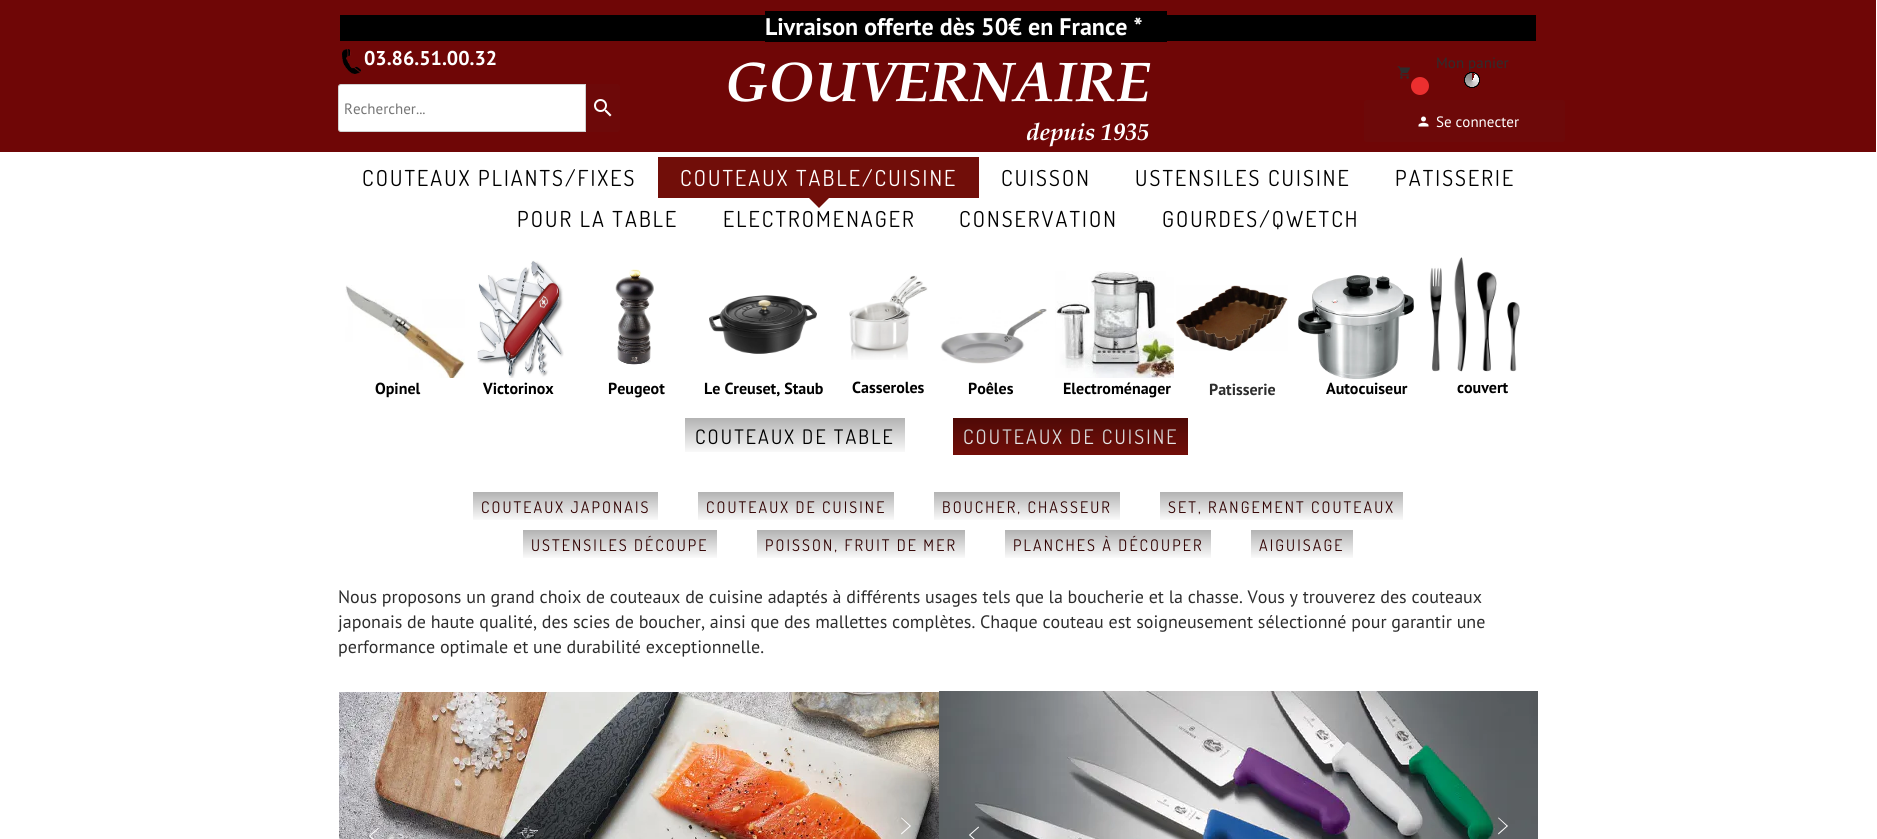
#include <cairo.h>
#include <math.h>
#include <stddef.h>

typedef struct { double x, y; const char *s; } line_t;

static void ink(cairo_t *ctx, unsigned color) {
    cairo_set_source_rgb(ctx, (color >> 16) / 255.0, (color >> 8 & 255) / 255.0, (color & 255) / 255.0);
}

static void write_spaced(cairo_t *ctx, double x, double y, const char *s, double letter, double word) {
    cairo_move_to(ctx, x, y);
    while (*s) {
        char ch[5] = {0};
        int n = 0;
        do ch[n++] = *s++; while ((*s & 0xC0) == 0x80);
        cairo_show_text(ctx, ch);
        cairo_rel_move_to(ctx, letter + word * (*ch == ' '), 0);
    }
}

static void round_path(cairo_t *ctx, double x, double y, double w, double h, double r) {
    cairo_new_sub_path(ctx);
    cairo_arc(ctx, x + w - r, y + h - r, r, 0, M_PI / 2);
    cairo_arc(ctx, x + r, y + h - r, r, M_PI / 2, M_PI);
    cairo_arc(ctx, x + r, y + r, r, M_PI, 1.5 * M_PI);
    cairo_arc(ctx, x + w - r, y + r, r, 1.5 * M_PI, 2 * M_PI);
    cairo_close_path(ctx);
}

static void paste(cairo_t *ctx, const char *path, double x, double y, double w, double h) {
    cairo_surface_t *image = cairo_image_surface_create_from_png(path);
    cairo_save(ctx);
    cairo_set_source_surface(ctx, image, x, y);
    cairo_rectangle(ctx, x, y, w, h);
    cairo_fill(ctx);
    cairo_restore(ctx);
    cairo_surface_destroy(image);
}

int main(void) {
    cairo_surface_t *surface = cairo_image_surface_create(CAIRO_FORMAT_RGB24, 1877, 839);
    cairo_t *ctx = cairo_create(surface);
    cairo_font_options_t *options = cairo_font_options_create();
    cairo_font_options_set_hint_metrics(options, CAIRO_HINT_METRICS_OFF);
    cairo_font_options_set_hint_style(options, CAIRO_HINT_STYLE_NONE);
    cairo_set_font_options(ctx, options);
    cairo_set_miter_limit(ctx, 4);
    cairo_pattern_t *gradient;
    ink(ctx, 0xFFFFFF);
    cairo_paint(ctx);
    ink(ctx, 0x6F0606);
    cairo_rectangle(ctx, 0, 0, 1876, 152);
    cairo_fill(ctx);
    ink(ctx, 0x000000);
    cairo_rectangle(ctx, 765, 11, 402, 31);
    cairo_fill(ctx);
    cairo_select_font_face(ctx, "PT Sans", CAIRO_FONT_SLANT_NORMAL, CAIRO_FONT_WEIGHT_BOLD);
    cairo_set_font_size(ctx, 24);
    ink(ctx, 0xFFFFFF);
    cairo_move_to(ctx, 765, 35);
    cairo_show_text(ctx, "Livraison offerte dès 50€ en France *");
    ink(ctx, 0x000000);
    cairo_rectangle(ctx, 340, 15, 425, 26);
    cairo_fill(ctx);
    cairo_rectangle(ctx, 1167, 15, 369, 26);
    cairo_fill(ctx);
    paste(ctx, "media/1.png", 342, 49, 19, 25);
    cairo_set_font_size(ctx, 20);
    ink(ctx, 0xFFFFFF);
    cairo_move_to(ctx, 364, 65);
    cairo_show_text(ctx, "03.86.51.00.32");
    cairo_select_font_face(ctx, "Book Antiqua", CAIRO_FONT_SLANT_ITALIC, CAIRO_FONT_WEIGHT_BOLD);
    cairo_set_font_size(ctx, 56);
    cairo_move_to(ctx, 725, 101);
    cairo_show_text(ctx, "GOUVERNAIRE");
    cairo_set_font_size(ctx, 24);
    cairo_move_to(ctx, 1026, 140);
    cairo_show_text(ctx, "depuis 1935");
    cairo_select_font_face(ctx, "PT Sans", CAIRO_FONT_SLANT_NORMAL, CAIRO_FONT_WEIGHT_NORMAL);
    cairo_set_font_size(ctx, 15);
    ink(ctx, 0x2D2D2D);
    cairo_move_to(ctx, 1436, 68);
    cairo_show_text(ctx, "Mon panier");
    paste(ctx, "media/2.png", 1464, 72, 16, 16);
    paste(ctx, "media/3.png", 1397, 66, 13, 13);
    ink(ctx, 0xEC2F2F);
    cairo_arc(ctx, 1420, 86, 9, 0, 2 * M_PI);
    cairo_fill(ctx);
    ink(ctx, 0xFFFFFF);
    cairo_new_path(ctx);
    cairo_move_to(ctx, 341, 84.5);
    cairo_line_to(ctx, 585.5, 84.5);
    cairo_line_to(ctx, 585.5, 131.5);
    cairo_line_to(ctx, 341, 131.5);
    cairo_curve_to(ctx, 339.5, 131.5, 338.5, 130.5, 338.5, 129);
    cairo_line_to(ctx, 338.5, 87);
    cairo_curve_to(ctx, 338.5, 85.5, 339.5, 84.5, 341, 84.5);
    cairo_close_path(ctx);
    cairo_fill_preserve(ctx);
    ink(ctx, 0xD1D1D1);
    cairo_set_line_width(ctx, 1);
    cairo_stroke(ctx);
    ink(ctx, 0x757575);
    cairo_move_to(ctx, 344, 114);
    cairo_show_text(ctx, "Rechercher...");
    ink(ctx, 0x6D0909);
    cairo_new_path(ctx);
    cairo_move_to(ctx, 586, 84);
    cairo_line_to(ctx, 617, 84);
    cairo_curve_to(ctx, 618.5, 84, 620, 85.5, 620, 87);
    cairo_line_to(ctx, 620, 129);
    cairo_curve_to(ctx, 620, 130.5, 618.5, 132, 617, 132);
    cairo_line_to(ctx, 586, 132);
    cairo_close_path(ctx);
    cairo_fill(ctx);
    paste(ctx, "media/4.png", 594, 99, 18, 18);
    round_path(ctx, 1364, 100, 201, 42, 3);
    cairo_fill(ctx);
    paste(ctx, "media/5.png", 1418, 116, 11, 11);
    ink(ctx, 0xFFFFFF);
    cairo_move_to(ctx, 1436, 127);
    cairo_show_text(ctx, "Se connecter");
    cairo_select_font_face(ctx, "Dosis", CAIRO_FONT_SLANT_NORMAL, CAIRO_FONT_WEIGHT_NORMAL);
    cairo_set_font_size(ctx, 22);
    ink(ctx, 0x000000);
    write_spaced(ctx, 362, 186, "COUTEAUX PLIANTS/FIXES", 2.1, 0);
    ink(ctx, 0x710E09);
    cairo_rectangle(ctx, 658, 157, 321, 41);
    cairo_fill(ctx);
    ink(ctx, 0xFFFFFF);
    write_spaced(ctx, 680, 186, "COUTEAUX TABLE/CUISINE", 2.1, 0);
    ink(ctx, 0x710E09);
    cairo_new_path(ctx);
    cairo_move_to(ctx, 809, 198);
    cairo_line_to(ctx, 829, 198);
    cairo_line_to(ctx, 819, 208);
    cairo_close_path(ctx);
    cairo_fill(ctx);
    ink(ctx, 0x000000);
    {
        static const line_t items[] = {
            {1001, 186, "CUISSON"},
            {1135, 186, "USTENSILES CUISINE"},
            {1395, 186, "PATISSERIE"},
            {517, 227, "POUR LA TABLE"},
            {723, 227, "ELECTROMENAGER"},
            {959, 227, "CONSERVATION"},
            {1162, 227, "GOURDES/QWETCH"},
        };
        for (size_t i = 0; i < sizeof items / sizeof *items; i++) {
            write_spaced(ctx, items[i].x, items[i].y, items[i].s, 2.1, 0);
        }
    }
    paste(ctx, "media/6.png", 345, 285, 120, 93);
    paste(ctx, "media/7.png", 477, 260, 87, 118);
    paste(ctx, "media/8.png", 615, 269, 39, 96);
    paste(ctx, "media/9.png", 709, 295, 108, 59);
    paste(ctx, "media/10.png", 849, 275, 79, 85);
    paste(ctx, "media/11.png", 940, 308, 107, 56);
    paste(ctx, "media/12.png", 1055, 271, 119, 107);
    paste(ctx, "media/13.png", 1176, 285, 112, 66);
    paste(ctx, "media/14.png", 1298, 275, 116, 104);
    paste(ctx, "media/15.png", 1429, 257, 91, 115);
    cairo_select_font_face(ctx, "PT Sans", CAIRO_FONT_SLANT_NORMAL, CAIRO_FONT_WEIGHT_BOLD);
    cairo_set_font_size(ctx, 16);
    {
        static const line_t items[] = {
            {375, 394, "Opinel"},
            {483, 394, "Victorinox"},
            {608, 394, "Peugeot"},
            {704, 394, "Le Creuset, Staub"},
            {852, 393, "Casseroles"},
            {968, 394, "Poêles"},
            {1063, 394, "Electroménager"},
        };
        for (size_t i = 0; i < sizeof items / sizeof *items; i++) {
            cairo_move_to(ctx, items[i].x, items[i].y);
            cairo_show_text(ctx, items[i].s);
        }
    }
    ink(ctx, 0x2D2D2D);
    cairo_move_to(ctx, 1209, 395);
    cairo_show_text(ctx, "Patisserie");
    ink(ctx, 0x000000);
    cairo_move_to(ctx, 1326, 394);
    cairo_show_text(ctx, "Autocuiseur");
    cairo_move_to(ctx, 1457, 393);
    cairo_show_text(ctx, "couvert");
    cairo_select_font_face(ctx, "Dosis", CAIRO_FONT_SLANT_NORMAL, CAIRO_FONT_WEIGHT_NORMAL);
    cairo_set_font_size(ctx, 20);
    write_spaced(ctx, 695, 444, "COUTEAUX DE TABLE", 2.1, 0);
    gradient = cairo_pattern_create_linear(795, 418, 795, 455);
    cairo_pattern_add_color_stop_rgba(gradient, 0, 0, 0, 0, 0.3);
    cairo_pattern_add_color_stop_rgba(gradient, 1, 0, 0, 0, 0);
    cairo_set_source(ctx, gradient);
    cairo_pattern_destroy(gradient);
    cairo_rectangle(ctx, 685, 418, 220, 34);
    cairo_fill(ctx);
    ink(ctx, 0x710E09);
    cairo_rectangle(ctx, 953, 418, 235, 37);
    cairo_fill(ctx);
    ink(ctx, 0xFFFFFF);
    write_spaced(ctx, 963, 444, "COUTEAUX DE CUISINE", 2.1, 0);
    gradient = cairo_pattern_create_linear(1071, 418, 1071, 455);
    cairo_pattern_add_color_stop_rgba(gradient, 0, 0, 0, 0, 0.3);
    cairo_pattern_add_color_stop_rgba(gradient, 1, 0, 0, 0, 0);
    cairo_set_source(ctx, gradient);
    cairo_pattern_destroy(gradient);
    cairo_rectangle(ctx, 953, 418, 235, 34);
    cairo_fill(ctx);
    cairo_set_font_size(ctx, 16);
    ink(ctx, 0x3A0303);
    write_spaced(ctx, 481, 513, "COUTEAUX JAPONAIS", 2.1, 0);
    gradient = cairo_pattern_create_linear(566, 492, 566, 522);
    cairo_pattern_add_color_stop_rgba(gradient, 0, 0, 0, 0, 0.3);
    cairo_pattern_add_color_stop_rgba(gradient, 1, 0, 0, 0, 0);
    cairo_set_source(ctx, gradient);
    cairo_pattern_destroy(gradient);
    cairo_rectangle(ctx, 473, 492, 185, 28);
    cairo_fill(ctx);
    ink(ctx, 0x3A0303);
    write_spaced(ctx, 706, 513, "COUTEAUX DE CUISINE", 2.1, 0);
    gradient = cairo_pattern_create_linear(796, 492, 796, 522);
    cairo_pattern_add_color_stop_rgba(gradient, 0, 0, 0, 0, 0.3);
    cairo_pattern_add_color_stop_rgba(gradient, 1, 0, 0, 0, 0);
    cairo_set_source(ctx, gradient);
    cairo_pattern_destroy(gradient);
    cairo_rectangle(ctx, 698, 492, 196, 28);
    cairo_fill(ctx);
    ink(ctx, 0x3A0303);
    write_spaced(ctx, 942, 513, "BOUCHER, CHASSEUR", 2.1, 0);
    gradient = cairo_pattern_create_linear(1027, 492, 1027, 522);
    cairo_pattern_add_color_stop_rgba(gradient, 0, 0, 0, 0, 0.3);
    cairo_pattern_add_color_stop_rgba(gradient, 1, 0, 0, 0, 0);
    cairo_set_source(ctx, gradient);
    cairo_pattern_destroy(gradient);
    cairo_rectangle(ctx, 934, 492, 186, 28);
    cairo_fill(ctx);
    ink(ctx, 0x3A0303);
    write_spaced(ctx, 1168, 513, "SET, RANGEMENT COUTEAUX", 2.1, 0);
    gradient = cairo_pattern_create_linear(1282, 492, 1282, 522);
    cairo_pattern_add_color_stop_rgba(gradient, 0, 0, 0, 0, 0.3);
    cairo_pattern_add_color_stop_rgba(gradient, 1, 0, 0, 0, 0);
    cairo_set_source(ctx, gradient);
    cairo_pattern_destroy(gradient);
    cairo_rectangle(ctx, 1160, 492, 243, 28);
    cairo_fill(ctx);
    ink(ctx, 0x3A0303);
    write_spaced(ctx, 531, 551, "USTENSILES DÉCOUPE", 2.1, 0);
    gradient = cairo_pattern_create_linear(620, 530, 620, 560);
    cairo_pattern_add_color_stop_rgba(gradient, 0, 0, 0, 0, 0.3);
    cairo_pattern_add_color_stop_rgba(gradient, 1, 0, 0, 0, 0);
    cairo_set_source(ctx, gradient);
    cairo_pattern_destroy(gradient);
    cairo_rectangle(ctx, 523, 530, 194, 28);
    cairo_fill(ctx);
    ink(ctx, 0x3A0303);
    write_spaced(ctx, 765, 551, "POISSON, FRUIT DE MER", 2.1, 0);
    gradient = cairo_pattern_create_linear(861, 530, 861, 560);
    cairo_pattern_add_color_stop_rgba(gradient, 0, 0, 0, 0, 0.3);
    cairo_pattern_add_color_stop_rgba(gradient, 1, 0, 0, 0, 0);
    cairo_set_source(ctx, gradient);
    cairo_pattern_destroy(gradient);
    cairo_rectangle(ctx, 757, 530, 208, 28);
    cairo_fill(ctx);
    ink(ctx, 0x3A0303);
    write_spaced(ctx, 1013, 551, "PLANCHES À DÉCOUPER", 2.1, 0);
    gradient = cairo_pattern_create_linear(1108, 530, 1108, 560);
    cairo_pattern_add_color_stop_rgba(gradient, 0, 0, 0, 0, 0.3);
    cairo_pattern_add_color_stop_rgba(gradient, 1, 0, 0, 0, 0);
    cairo_set_source(ctx, gradient);
    cairo_pattern_destroy(gradient);
    cairo_rectangle(ctx, 1005, 530, 206, 28);
    cairo_fill(ctx);
    ink(ctx, 0x3A0303);
    write_spaced(ctx, 1259, 551, "AIGUISAGE", 2.1, 0);
    gradient = cairo_pattern_create_linear(1302, 530, 1302, 560);
    cairo_pattern_add_color_stop_rgba(gradient, 0, 0, 0, 0, 0.3);
    cairo_pattern_add_color_stop_rgba(gradient, 1, 0, 0, 0, 0);
    cairo_set_source(ctx, gradient);
    cairo_pattern_destroy(gradient);
    cairo_rectangle(ctx, 1251, 530, 102, 28);
    cairo_fill(ctx);
    cairo_select_font_face(ctx, "PT Sans", CAIRO_FONT_SLANT_NORMAL, CAIRO_FONT_WEIGHT_NORMAL);
    cairo_set_font_size(ctx, 18);
    ink(ctx, 0x2D2D2D);
    {
        static const line_t items[] = {
            {338, 603, "Nous proposons un grand choix de couteaux de cuisine adaptés à différents usages tels que la boucherie et la chasse. Vous y trouverez des couteaux"},
            {338, 628, "japonais de haute qualité, des scies de boucher, ainsi que des mallettes complètes. Chaque couteau est soigneusement sélectionné pour garantir une"},
            {338, 653, "performance optimale et une durabilité exceptionnelle."},
        };
        for (size_t i = 0; i < sizeof items / sizeof *items; i++) {
            cairo_move_to(ctx, items[i].x, items[i].y);
            cairo_show_text(ctx, items[i].s);
        }
    }
    paste(ctx, "media/16.png", 339, 692, 600, 147);
    paste(ctx, "media/17.png", 369, 827, 10, 12);
    ink(ctx, 0xFFFFFF);
    cairo_new_path(ctx);
    cairo_move_to(ctx, 911, 826);
    cairo_line_to(ctx, 901.5, 834.5);
    cairo_line_to(ctx, 901, 833.5);
    cairo_line_to(ctx, 909.5, 826);
    cairo_line_to(ctx, 901, 818);
    cairo_line_to(ctx, 901.5, 817.5);
    cairo_close_path(ctx);
    cairo_fill(ctx);
    paste(ctx, "media/18.png", 939, 691, 599, 148);
    paste(ctx, "media/19.png", 969, 826, 10, 13);
    cairo_new_path(ctx);
    cairo_move_to(ctx, 1508, 826);
    cairo_line_to(ctx, 1498.5, 834.5);
    cairo_line_to(ctx, 1498, 833.5);
    cairo_line_to(ctx, 1506.5, 826);
    cairo_line_to(ctx, 1498, 818);
    cairo_line_to(ctx, 1498.5, 817.5);
    cairo_close_path(ctx);
    cairo_fill(ctx);
    cairo_surface_write_to_png(surface, "image.png");
    cairo_font_options_destroy(options);
    cairo_destroy(ctx);
    cairo_surface_destroy(surface);
    return 0;
}
